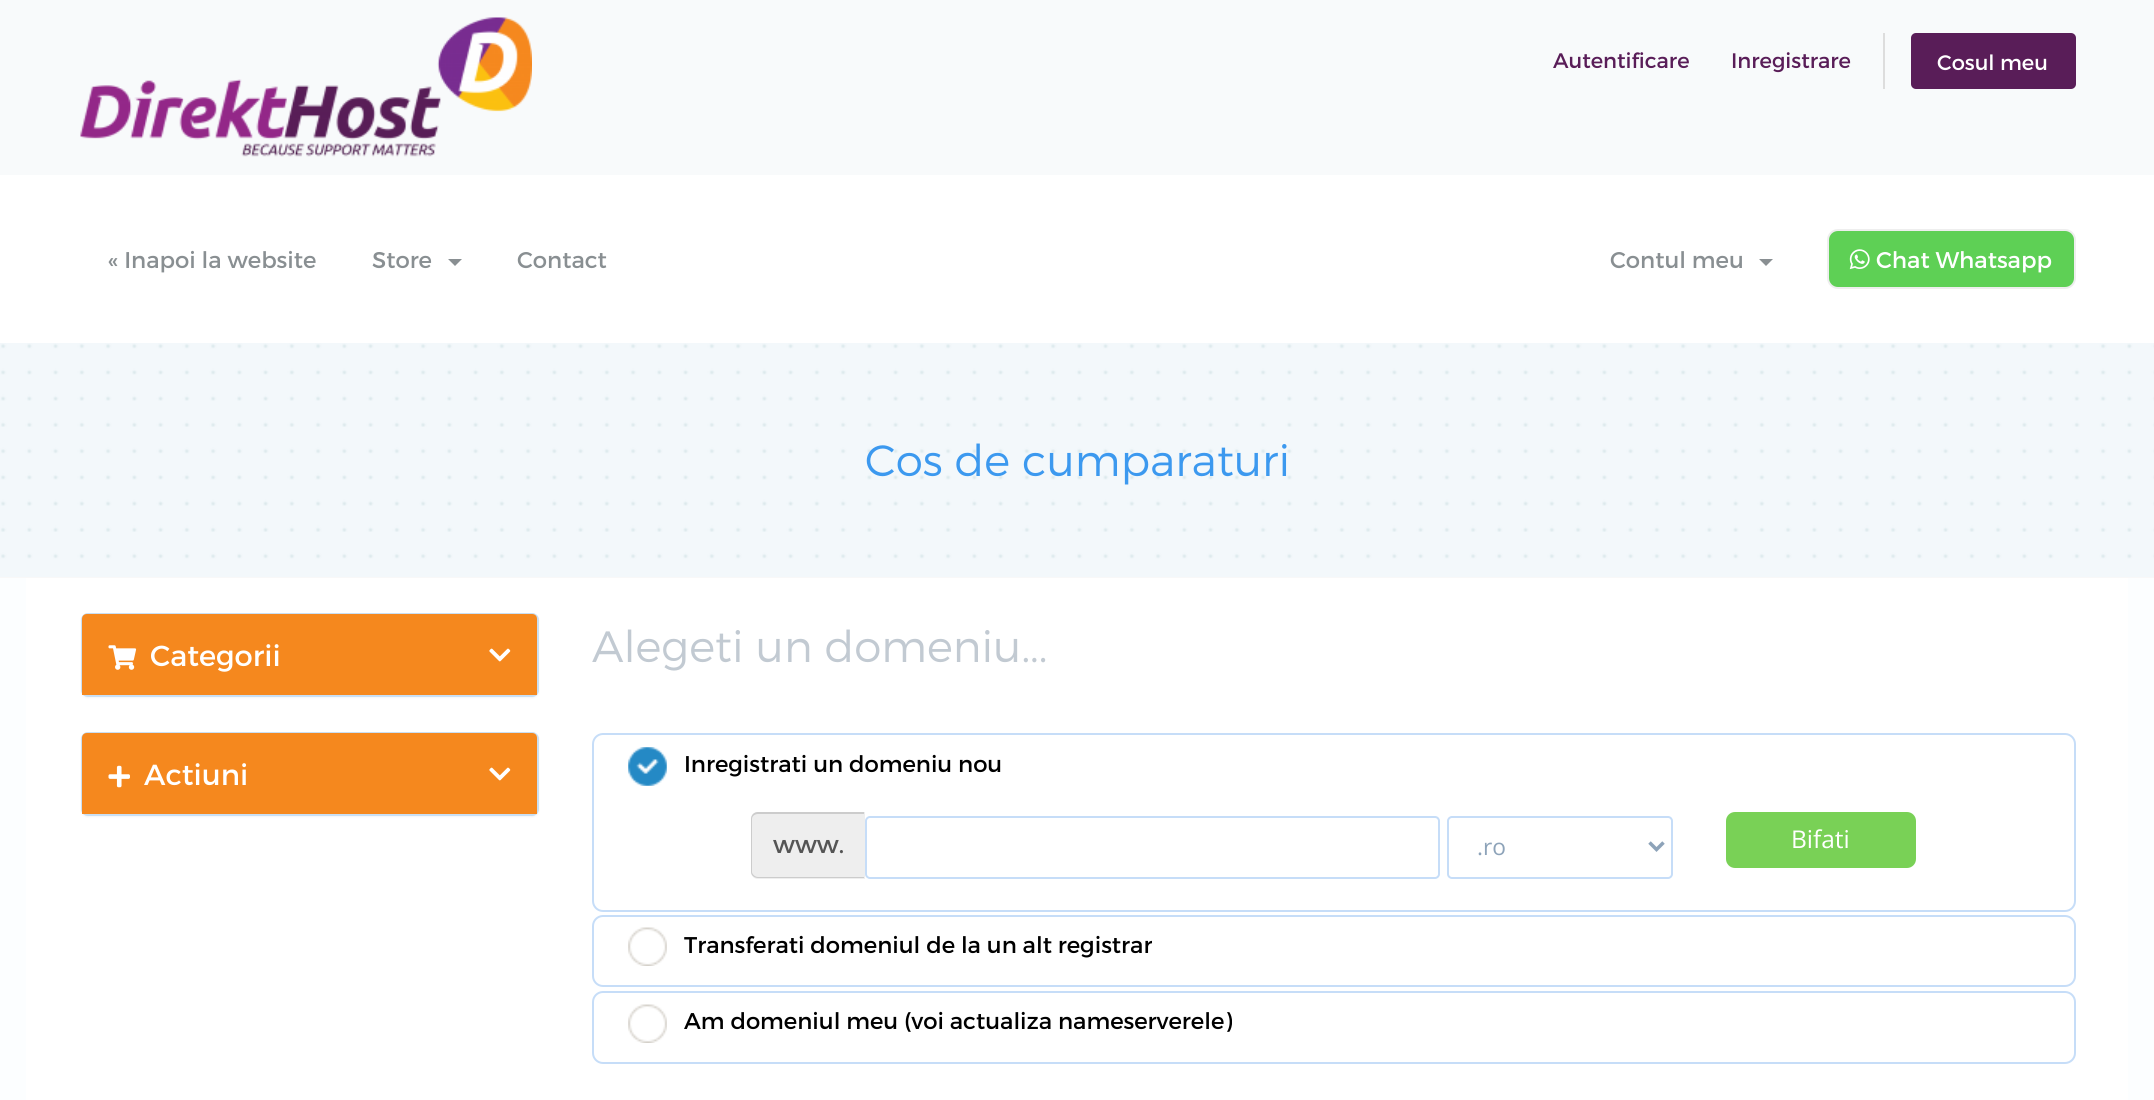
#include <cairo.h>
#include <math.h>
#include <stddef.h>


static void ink(cairo_t *ctx, unsigned color) {
    cairo_set_source_rgb(ctx, (color >> 16) / 255.0, (color >> 8 & 255) / 255.0, (color & 255) / 255.0);
}

static void round_path(cairo_t *ctx, double x, double y, double w, double h, double r) {
    cairo_new_sub_path(ctx);
    cairo_arc(ctx, x + w - r, y + h - r, r, 0, M_PI / 2);
    cairo_arc(ctx, x + r, y + h - r, r, M_PI / 2, M_PI);
    cairo_arc(ctx, x + r, y + r, r, M_PI, 1.5 * M_PI);
    cairo_arc(ctx, x + w - r, y + r, r, 1.5 * M_PI, 2 * M_PI);
    cairo_close_path(ctx);
}

static void blur_box(cairo_t *ctx, double x, double y, double w, double h, double r, double blur, double alpha) {
    cairo_push_group_with_content(ctx, CAIRO_CONTENT_ALPHA);
    cairo_set_operator(ctx, CAIRO_OPERATOR_SOURCE);
    for (int i = 15; i >= -15 && fmin(w, h) + blur * i / 3 > 0; i -= 2) {
        double e = blur * i / 6;
        cairo_set_source_rgba(ctx, 0, 0, 0, alpha * erfc((i - 1) / 8.5) / 2);
        round_path(ctx, x - e, y - e, w + 2 * e, h + 2 * e, fmax(0, fmin(r + e + blur * .6, fmin(w, h) / 2 + e)));
        cairo_fill(ctx);
    }
    cairo_pattern_t *soft = cairo_pop_group(ctx);
    cairo_mask(ctx, soft);
    cairo_pattern_destroy(soft);
}

static void paste(cairo_t *ctx, const char *path, double x, double y, double w, double h) {
    cairo_surface_t *image = cairo_image_surface_create_from_png(path);
    cairo_save(ctx);
    cairo_set_source_surface(ctx, image, x, y);
    cairo_rectangle(ctx, x, y, w, h);
    cairo_fill(ctx);
    cairo_restore(ctx);
    cairo_surface_destroy(image);
}

int main(void) {
    cairo_surface_t *surface = cairo_image_surface_create(CAIRO_FORMAT_RGB24, 2154, 1100);
    cairo_t *ctx = cairo_create(surface);
    cairo_font_options_t *options = cairo_font_options_create();
    cairo_font_options_set_hint_metrics(options, CAIRO_HINT_METRICS_OFF);
    cairo_font_options_set_hint_style(options, CAIRO_HINT_STYLE_NONE);
    cairo_set_font_options(ctx, options);
    cairo_set_miter_limit(ctx, 4);
    ink(ctx, 0xF8F8F8);
    cairo_paint(ctx);
    ink(ctx, 0xF8FAFB);
    cairo_rectangle(ctx, 0, 0, 2154, 175);
    cairo_fill(ctx);
    paste(ctx, "media/1.png", 80, 17, 452, 140);
    cairo_select_font_face(ctx, "Montserrat", CAIRO_FONT_SLANT_NORMAL, CAIRO_FONT_WEIGHT_NORMAL);
    cairo_set_font_size(ctx, 21);
    ink(ctx, 0x591D58);
    cairo_move_to(ctx, 1553, 68);
    cairo_show_text(ctx, "Autentificare");
    cairo_move_to(ctx, 1731, 68);
    cairo_show_text(ctx, "Inregistrare");
    ink(ctx, 0xDDDDDD);
    cairo_rectangle(ctx, 1883, 33, 2, 56);
    cairo_fill(ctx);
    ink(ctx, 0x591D58);
    round_path(ctx, 1911, 33, 165, 56, 5);
    cairo_fill(ctx);
    ink(ctx, 0xFFFFFF);
    cairo_move_to(ctx, 1937, 70);
    cairo_show_text(ctx, "Cosul meu");
    cairo_rectangle(ctx, 0, 175, 2154, 168);
    cairo_fill(ctx);
    cairo_set_font_size(ctx, 22.75);
    ink(ctx, 0x898F92);
    cairo_move_to(ctx, 108, 268);
    cairo_show_text(ctx, "« Inapoi la website");
    cairo_move_to(ctx, 372, 268);
    cairo_show_text(ctx, "Store");
    cairo_new_path(ctx);
    cairo_move_to(ctx, 448, 259);
    cairo_line_to(ctx, 462, 259);
    cairo_line_to(ctx, 455, 266);
    cairo_close_path(ctx);
    cairo_fill(ctx);
    cairo_move_to(ctx, 517, 268);
    cairo_show_text(ctx, "Contact");
    cairo_move_to(ctx, 1610, 268);
    cairo_show_text(ctx, "Contul meu");
    cairo_new_path(ctx);
    cairo_move_to(ctx, 1759, 259);
    cairo_line_to(ctx, 1773, 259);
    cairo_line_to(ctx, 1766, 266);
    cairo_close_path(ctx);
    cairo_fill(ctx);
    ink(ctx, 0x5ED055);
    round_path(ctx, 1828, 230, 247, 58, 10);
    cairo_fill_preserve(ctx);
    ink(ctx, 0xEEEEEE);
    cairo_stroke(ctx);
    paste(ctx, "media/2.png", 1849, 249, 21, 21);
    ink(ctx, 0xFFFFFF);
    cairo_move_to(ctx, 1876, 268);
    cairo_show_text(ctx, "Chat Whatsapp");
    paste(ctx, "media/3.png", 0, 343, 2154, 234);
    cairo_select_font_face(ctx, "Montserrat Light", CAIRO_FONT_SLANT_NORMAL, CAIRO_FONT_WEIGHT_NORMAL);
    cairo_set_font_size(ctx, 43.75);
    ink(ctx, 0x3C99EF);
    cairo_move_to(ctx, 865, 476);
    cairo_show_text(ctx, "Cos de cumparaturi");
    ink(ctx, 0xFCFEFF);
    cairo_rectangle(ctx, 0, 578, 2154, 522);
    cairo_fill(ctx);
    ink(ctx, 0xFFFFFF);
    cairo_rectangle(ctx, 26, 578, 2102, 522);
    cairo_fill(ctx);
    ink(ctx, 0x000000);
    blur_box(ctx, 81, 614, 458, 84, 7, 1, 0.05);
    round_path(ctx, 82, 614, 456, 82, 6);
    ink(ctx, 0xC9DFF3);
    cairo_stroke(ctx);
    ink(ctx, 0xF5881E);
    cairo_new_path(ctx);
    cairo_move_to(ctx, 87, 614);
    cairo_line_to(ctx, 532, 614);
    cairo_curve_to(ctx, 535, 614, 537, 616, 537, 619);
    cairo_line_to(ctx, 537, 695);
    cairo_line_to(ctx, 82, 695);
    cairo_line_to(ctx, 82, 619);
    cairo_curve_to(ctx, 82, 616, 84, 614, 87, 614);
    cairo_close_path(ctx);
    cairo_fill(ctx);
    paste(ctx, "media/4.png", 108, 645, 29, 25);
    cairo_select_font_face(ctx, "Montserrat", CAIRO_FONT_SLANT_NORMAL, CAIRO_FONT_WEIGHT_NORMAL);
    cairo_set_font_size(ctx, 29);
    ink(ctx, 0xFFFFFF);
    cairo_move_to(ctx, 150, 666);
    cairo_show_text(ctx, "Categorii");
    paste(ctx, "media/5.png", 489, 648, 22, 14);
    ink(ctx, 0x000000);
    blur_box(ctx, 81, 733, 458, 84, 7, 1, 0.05);
    round_path(ctx, 82, 733, 456, 82, 6);
    ink(ctx, 0xC9DFF3);
    cairo_stroke(ctx);
    ink(ctx, 0xF5881E);
    cairo_new_path(ctx);
    cairo_move_to(ctx, 87, 733);
    cairo_line_to(ctx, 532, 733);
    cairo_curve_to(ctx, 535, 733, 537, 735, 537, 738);
    cairo_line_to(ctx, 537, 814);
    cairo_line_to(ctx, 82, 814);
    cairo_line_to(ctx, 82, 738);
    cairo_curve_to(ctx, 82, 735, 84, 733, 87, 733);
    cairo_close_path(ctx);
    cairo_fill(ctx);
    paste(ctx, "media/6.png", 108, 765, 22, 23);
    ink(ctx, 0xFFFFFF);
    cairo_move_to(ctx, 144, 785);
    cairo_show_text(ctx, "Actiuni");
    paste(ctx, "media/5.png", 489, 767, 22, 14);
    cairo_select_font_face(ctx, "Montserrat Light", CAIRO_FONT_SLANT_NORMAL, CAIRO_FONT_WEIGHT_NORMAL);
    cairo_set_font_size(ctx, 43.75);
    ink(ctx, 0xC2CAD2);
    cairo_move_to(ctx, 592, 662);
    cairo_show_text(ctx, "Alegeti un domeniu...");
    round_path(ctx, 593, 734, 1482, 177, 10);
    ink(ctx, 0xC6DDF8);
    cairo_stroke(ctx);
    paste(ctx, "media/7.png", 628, 747, 39, 39);
    cairo_select_font_face(ctx, "Montserrat", CAIRO_FONT_SLANT_NORMAL, CAIRO_FONT_WEIGHT_NORMAL);
    cairo_set_font_size(ctx, 22.75);
    ink(ctx, 0x000000);
    cairo_move_to(ctx, 684, 772);
    cairo_show_text(ctx, "Inregistrati un domeniu nou");
    ink(ctx, 0xEEEEEE);
    cairo_new_path(ctx);
    cairo_move_to(ctx, 758, 812);
    cairo_line_to(ctx, 865, 812);
    cairo_line_to(ctx, 865, 879);
    cairo_line_to(ctx, 758, 879);
    cairo_curve_to(ctx, 754, 879, 751, 876, 751, 872);
    cairo_line_to(ctx, 751, 819);
    cairo_curve_to(ctx, 751, 815, 754, 812, 758, 812);
    cairo_close_path(ctx);
    cairo_fill(ctx);
    ink(ctx, 0xCCCCCC);
    cairo_set_fill_rule(ctx, CAIRO_FILL_RULE_EVEN_ODD);
    cairo_new_path(ctx);
    cairo_move_to(ctx, 758, 812);
    cairo_line_to(ctx, 864, 812);
    cairo_line_to(ctx, 864, 878);
    cairo_line_to(ctx, 758, 878);
    cairo_curve_to(ctx, 754, 878, 751, 875, 751, 872);
    cairo_line_to(ctx, 751, 819);
    cairo_curve_to(ctx, 751, 815, 754, 812, 758, 812);
    cairo_close_path(ctx);
    cairo_move_to(ctx, 758, 814);
    cairo_line_to(ctx, 864, 814);
    cairo_line_to(ctx, 864, 877);
    cairo_line_to(ctx, 758, 877);
    cairo_curve_to(ctx, 755, 877, 752, 874, 752, 872);
    cairo_line_to(ctx, 752, 819);
    cairo_curve_to(ctx, 752, 816, 755, 814, 758, 814);
    cairo_close_path(ctx);
    cairo_fill(ctx);
    cairo_set_font_size(ctx, 24.5);
    ink(ctx, 0x555555);
    cairo_move_to(ctx, 773, 853);
    cairo_show_text(ctx, "www.");
    round_path(ctx, 866, 817, 573, 61, 4);
    ink(ctx, 0xC6DDF8);
    cairo_stroke(ctx);
    round_path(ctx, 1448, 817, 224, 61, 4);
    cairo_stroke(ctx);
    cairo_new_path(ctx);
    cairo_move_to(ctx, 1649.5, 842.5);
    cairo_line_to(ctx, 1656.5, 849.5);
    cairo_line_to(ctx, 1663.5, 842.5);
    ink(ctx, 0x8DA3B9);
    cairo_set_line_width(ctx, 3.5);
    cairo_stroke(ctx);
    cairo_select_font_face(ctx, "Open Sans", CAIRO_FONT_SLANT_NORMAL, CAIRO_FONT_WEIGHT_NORMAL);
    cairo_set_font_size(ctx, 22.75);
    cairo_move_to(ctx, 1477, 855);
    cairo_show_text(ctx, ".ro");
    ink(ctx, 0x79D156);
    round_path(ctx, 1726, 812, 190, 56, 9);
    cairo_fill(ctx);
    cairo_set_font_size(ctx, 24.5);
    ink(ctx, 0xFFFFFF);
    cairo_move_to(ctx, 1791, 848);
    cairo_show_text(ctx, "Bifati");
    round_path(ctx, 593, 916, 1482, 70, 10);
    ink(ctx, 0xC6DDF8);
    cairo_set_line_width(ctx, 2);
    cairo_stroke(ctx);
    paste(ctx, "media/8.png", 628, 927, 39, 39);
    cairo_select_font_face(ctx, "Montserrat", CAIRO_FONT_SLANT_NORMAL, CAIRO_FONT_WEIGHT_NORMAL);
    cairo_set_font_size(ctx, 22.75);
    ink(ctx, 0x000000);
    cairo_move_to(ctx, 684, 953);
    cairo_show_text(ctx, "Transferati domeniul de la un alt registrar");
    round_path(ctx, 593, 992, 1482, 71, 10);
    ink(ctx, 0xC6DDF8);
    cairo_stroke(ctx);
    paste(ctx, "media/8.png", 628, 1004, 39, 39);
    ink(ctx, 0x000000);
    cairo_move_to(ctx, 684, 1029);
    cairo_show_text(ctx, "Am domeniul meu (voi actualiza nameserverele)");
    cairo_surface_write_to_png(surface, "image.png");
    cairo_font_options_destroy(options);
    cairo_destroy(ctx);
    cairo_surface_destroy(surface);
    return 0;
}
